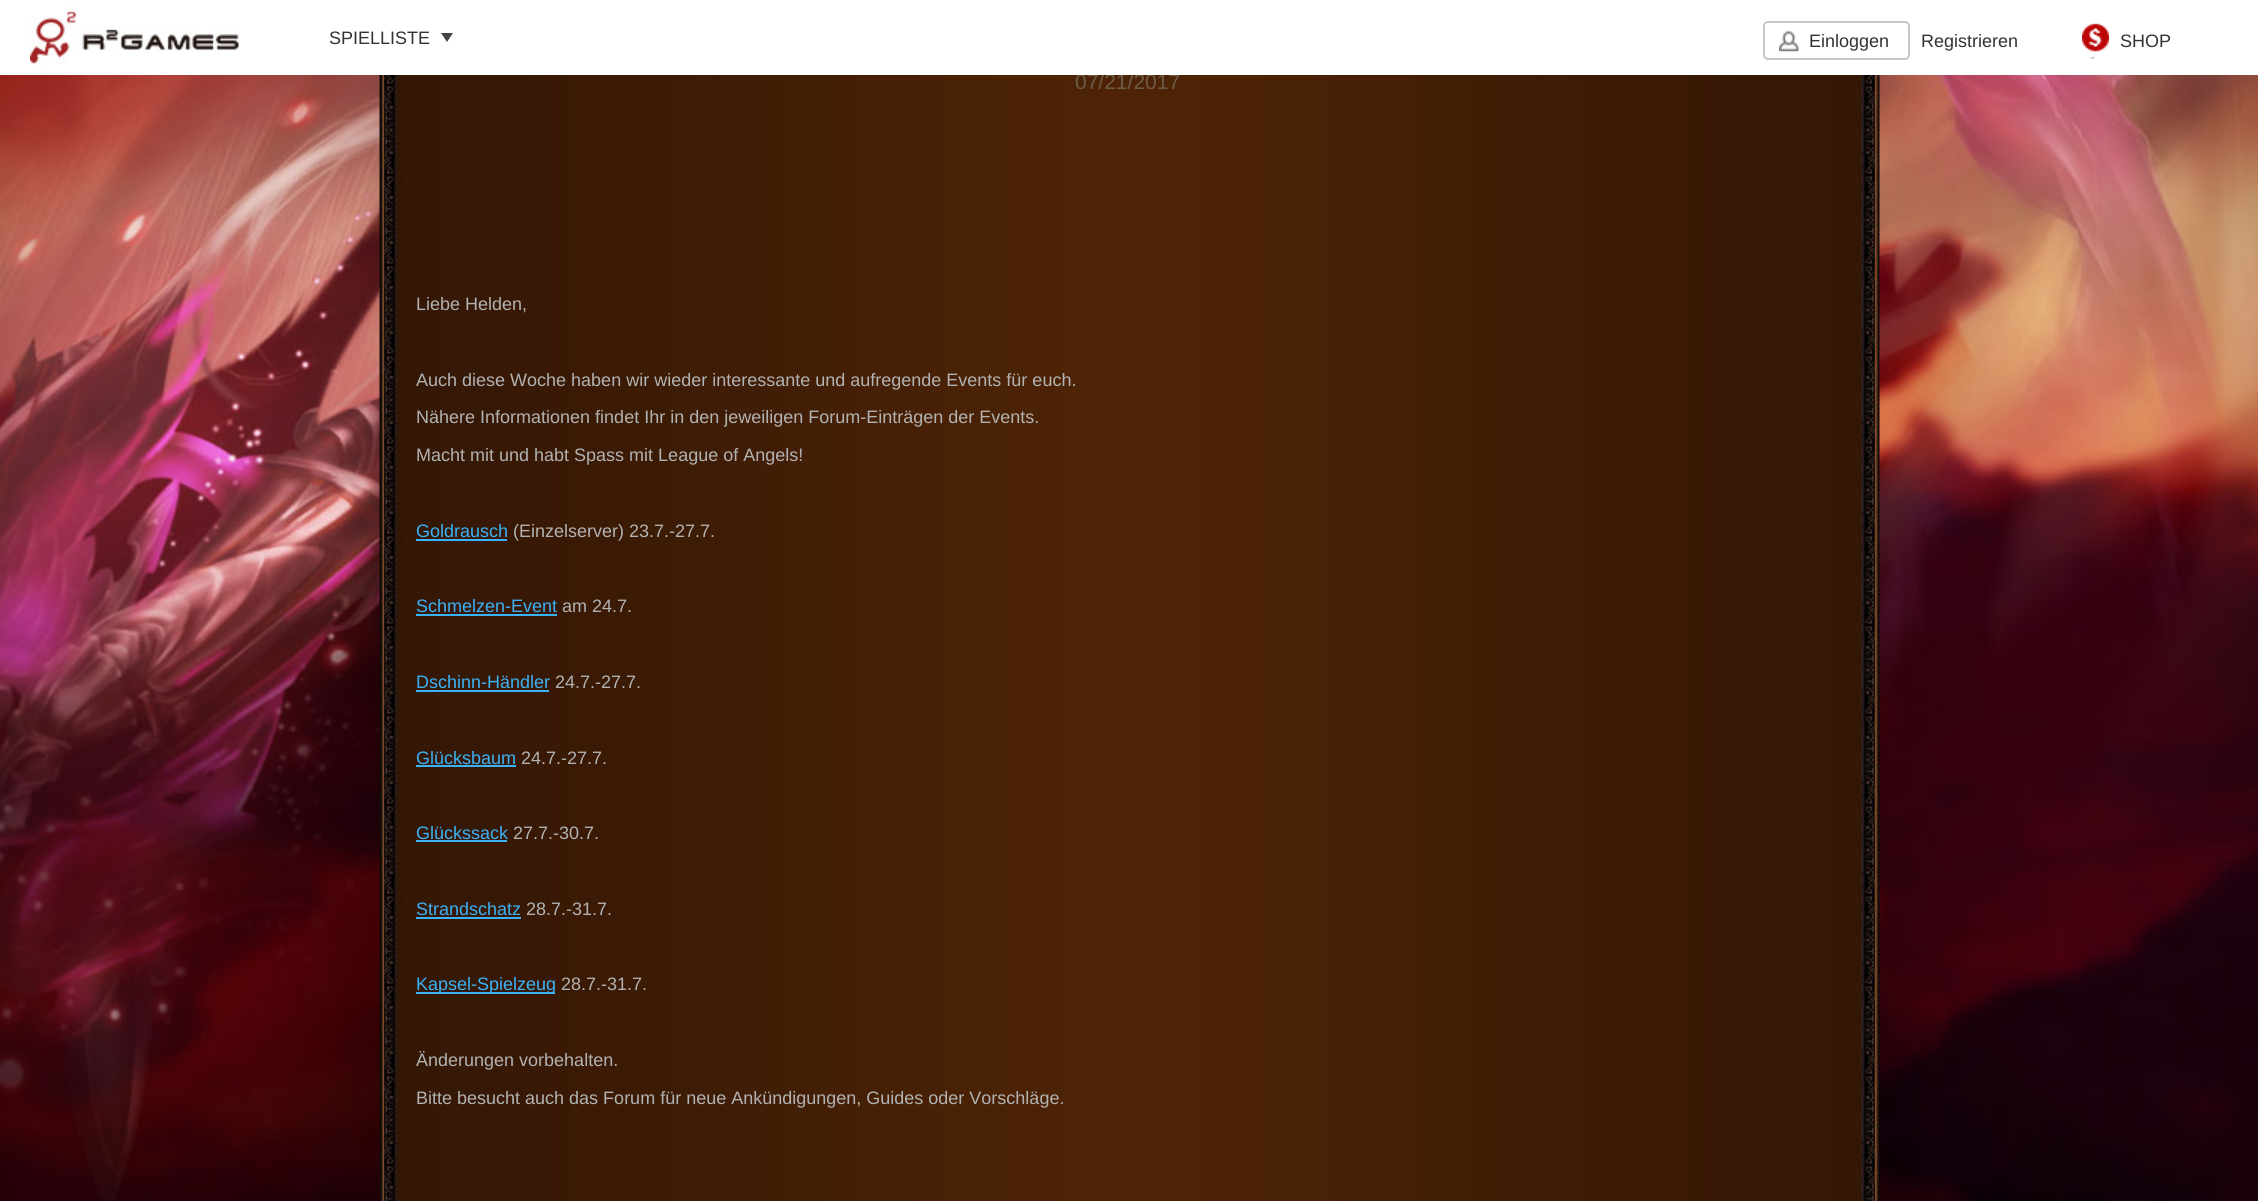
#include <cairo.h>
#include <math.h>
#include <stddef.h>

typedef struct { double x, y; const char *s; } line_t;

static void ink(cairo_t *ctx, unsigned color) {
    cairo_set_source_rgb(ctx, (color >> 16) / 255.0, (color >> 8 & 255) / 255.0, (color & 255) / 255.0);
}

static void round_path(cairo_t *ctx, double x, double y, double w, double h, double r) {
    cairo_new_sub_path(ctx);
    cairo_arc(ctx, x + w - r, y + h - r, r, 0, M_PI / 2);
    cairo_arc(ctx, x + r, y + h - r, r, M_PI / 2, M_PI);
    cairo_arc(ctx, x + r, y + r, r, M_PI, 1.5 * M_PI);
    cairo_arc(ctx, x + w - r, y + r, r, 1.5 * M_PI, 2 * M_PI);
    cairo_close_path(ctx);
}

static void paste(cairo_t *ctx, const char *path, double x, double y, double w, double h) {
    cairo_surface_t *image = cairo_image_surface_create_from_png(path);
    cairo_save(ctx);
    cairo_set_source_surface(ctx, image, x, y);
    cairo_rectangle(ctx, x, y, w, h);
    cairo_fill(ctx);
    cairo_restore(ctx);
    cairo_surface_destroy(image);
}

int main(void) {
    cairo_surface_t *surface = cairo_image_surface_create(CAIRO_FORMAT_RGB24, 2258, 1201);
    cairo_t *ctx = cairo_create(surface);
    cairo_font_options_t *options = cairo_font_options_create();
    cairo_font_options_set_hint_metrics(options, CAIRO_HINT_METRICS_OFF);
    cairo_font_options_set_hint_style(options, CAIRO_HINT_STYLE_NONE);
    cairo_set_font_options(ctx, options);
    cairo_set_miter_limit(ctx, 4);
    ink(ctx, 0xFFFFFF);
    cairo_paint(ctx);
    paste(ctx, "media/1.png", 0, 75, 2258, 1126);
    paste(ctx, "media/5.png", 379, 75, 1501, 1126);
    cairo_select_font_face(ctx, "Liberation Sans", CAIRO_FONT_SLANT_NORMAL, CAIRO_FONT_WEIGHT_NORMAL);
    cairo_set_font_size(ctx, 21);
    ink(ctx, 0x6C5C46);
    cairo_move_to(ctx, 1075, 89);
    cairo_show_text(ctx, "07/21/2017");
    ink(ctx, 0xFFFFFF);
    cairo_rectangle(ctx, 1078, 73, 102, 2);
    cairo_fill(ctx);
    paste(ctx, "media/2.png", 30, 4, 209, 61);
    cairo_set_font_size(ctx, 18);
    ink(ctx, 0x333333);
    cairo_move_to(ctx, 329, 44);
    cairo_show_text(ctx, "SPIELLISTE");
    ink(ctx, 0x474444);
    cairo_new_path(ctx);
    cairo_move_to(ctx, 441, 33);
    cairo_line_to(ctx, 453, 33);
    cairo_line_to(ctx, 447, 42);
    cairo_close_path(ctx);
    cairo_fill(ctx);
    paste(ctx, "media/3.png", 1779, 31, 20, 21);
    round_path(ctx, 1764, 22, 145, 37, 4);
    ink(ctx, 0xC7C7C7);
    cairo_stroke(ctx);
    ink(ctx, 0x333333);
    cairo_move_to(ctx, 1809, 47);
    cairo_show_text(ctx, "Einloggen");
    cairo_move_to(ctx, 1921, 47);
    cairo_show_text(ctx, "Registrieren");
    paste(ctx, "media/4.png", 2082, 23, 27, 36);
    cairo_move_to(ctx, 2120, 47);
    cairo_show_text(ctx, "SHOP");
    ink(ctx, 0xB2B2B2);
    {
        static const line_t items[] = {
            {416, 310, "Liebe Helden,"},
            {416, 386, "Auch diese Woche haben wir wieder interessante und aufregende Events für euch."},
            {416, 423, "Nähere Informationen findet Ihr in den jeweiligen Forum-Einträgen der Events."},
            {416, 461, "Macht mit und habt Spass mit League of Angels!"},
        };
        for (size_t i = 0; i < sizeof items / sizeof *items; i++) {
            cairo_move_to(ctx, items[i].x, items[i].y);
            cairo_show_text(ctx, items[i].s);
        }
    }
    ink(ctx, 0x3BB2F6);
    cairo_move_to(ctx, 416, 537);
    cairo_show_text(ctx, "Goldrausch");
    cairo_rectangle(ctx, 416, 539, 91, 2);
    cairo_fill(ctx);
    ink(ctx, 0xB2B2B2);
    cairo_move_to(ctx, 513, 537);
    cairo_show_text(ctx, "(Einzelserver) 23.7.-27.7.");
    ink(ctx, 0x3BB2F6);
    cairo_move_to(ctx, 416, 612);
    cairo_show_text(ctx, "Schmelzen-Event");
    cairo_rectangle(ctx, 416, 614, 141, 2);
    cairo_fill(ctx);
    ink(ctx, 0xB2B2B2);
    cairo_move_to(ctx, 562, 612);
    cairo_show_text(ctx, "am 24.7.");
    ink(ctx, 0x3BB2F6);
    cairo_move_to(ctx, 416, 688);
    cairo_show_text(ctx, "Dschinn-Händler");
    cairo_rectangle(ctx, 416, 690, 133, 2);
    cairo_fill(ctx);
    ink(ctx, 0xB2B2B2);
    cairo_move_to(ctx, 555, 688);
    cairo_show_text(ctx, "24.7.-27.7.");
    ink(ctx, 0x3BB2F6);
    cairo_move_to(ctx, 416, 764);
    cairo_show_text(ctx, "Glücksbaum");
    cairo_rectangle(ctx, 416, 765, 100, 2);
    cairo_fill(ctx);
    ink(ctx, 0xB2B2B2);
    cairo_move_to(ctx, 521, 764);
    cairo_show_text(ctx, "24.7.-27.7.");
    ink(ctx, 0x3BB2F6);
    cairo_move_to(ctx, 416, 839);
    cairo_show_text(ctx, "Glückssack");
    cairo_rectangle(ctx, 416, 840, 91, 2);
    cairo_fill(ctx);
    ink(ctx, 0xB2B2B2);
    cairo_move_to(ctx, 513, 839);
    cairo_show_text(ctx, "27.7.-30.7.");
    ink(ctx, 0x3BB2F6);
    cairo_move_to(ctx, 416, 915);
    cairo_show_text(ctx, "Strandschatz");
    cairo_rectangle(ctx, 416, 917, 105, 2);
    cairo_fill(ctx);
    ink(ctx, 0xB2B2B2);
    cairo_move_to(ctx, 526, 915);
    cairo_show_text(ctx, "28.7.-31.7.");
    ink(ctx, 0x3BB2F6);
    cairo_rectangle(ctx, 416, 992, 139, 2);
    cairo_fill(ctx);
    cairo_move_to(ctx, 416, 990);
    cairo_show_text(ctx, "Kapsel-Spielzeug");
    ink(ctx, 0xB2B2B2);
    {
        static const line_t items[] = {
            {561, 990, "28.7.-31.7."},
            {416, 1066, "Änderungen vorbehalten."},
            {416, 1104, "Bitte besucht auch das Forum für neue Ankündigungen, Guides oder Vorschläge."},
        };
        for (size_t i = 0; i < sizeof items / sizeof *items; i++) {
            cairo_move_to(ctx, items[i].x, items[i].y);
            cairo_show_text(ctx, items[i].s);
        }
    }
    cairo_surface_write_to_png(surface, "image.png");
    cairo_font_options_destroy(options);
    cairo_destroy(ctx);
    cairo_surface_destroy(surface);
    return 0;
}
